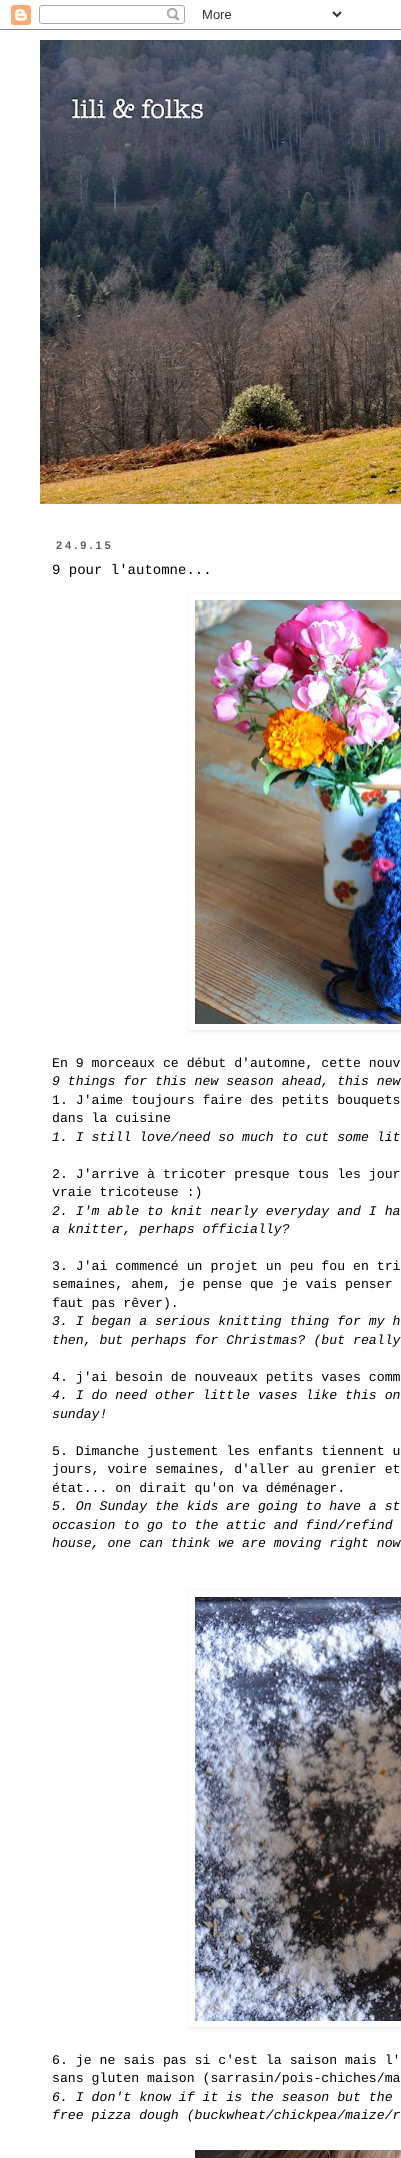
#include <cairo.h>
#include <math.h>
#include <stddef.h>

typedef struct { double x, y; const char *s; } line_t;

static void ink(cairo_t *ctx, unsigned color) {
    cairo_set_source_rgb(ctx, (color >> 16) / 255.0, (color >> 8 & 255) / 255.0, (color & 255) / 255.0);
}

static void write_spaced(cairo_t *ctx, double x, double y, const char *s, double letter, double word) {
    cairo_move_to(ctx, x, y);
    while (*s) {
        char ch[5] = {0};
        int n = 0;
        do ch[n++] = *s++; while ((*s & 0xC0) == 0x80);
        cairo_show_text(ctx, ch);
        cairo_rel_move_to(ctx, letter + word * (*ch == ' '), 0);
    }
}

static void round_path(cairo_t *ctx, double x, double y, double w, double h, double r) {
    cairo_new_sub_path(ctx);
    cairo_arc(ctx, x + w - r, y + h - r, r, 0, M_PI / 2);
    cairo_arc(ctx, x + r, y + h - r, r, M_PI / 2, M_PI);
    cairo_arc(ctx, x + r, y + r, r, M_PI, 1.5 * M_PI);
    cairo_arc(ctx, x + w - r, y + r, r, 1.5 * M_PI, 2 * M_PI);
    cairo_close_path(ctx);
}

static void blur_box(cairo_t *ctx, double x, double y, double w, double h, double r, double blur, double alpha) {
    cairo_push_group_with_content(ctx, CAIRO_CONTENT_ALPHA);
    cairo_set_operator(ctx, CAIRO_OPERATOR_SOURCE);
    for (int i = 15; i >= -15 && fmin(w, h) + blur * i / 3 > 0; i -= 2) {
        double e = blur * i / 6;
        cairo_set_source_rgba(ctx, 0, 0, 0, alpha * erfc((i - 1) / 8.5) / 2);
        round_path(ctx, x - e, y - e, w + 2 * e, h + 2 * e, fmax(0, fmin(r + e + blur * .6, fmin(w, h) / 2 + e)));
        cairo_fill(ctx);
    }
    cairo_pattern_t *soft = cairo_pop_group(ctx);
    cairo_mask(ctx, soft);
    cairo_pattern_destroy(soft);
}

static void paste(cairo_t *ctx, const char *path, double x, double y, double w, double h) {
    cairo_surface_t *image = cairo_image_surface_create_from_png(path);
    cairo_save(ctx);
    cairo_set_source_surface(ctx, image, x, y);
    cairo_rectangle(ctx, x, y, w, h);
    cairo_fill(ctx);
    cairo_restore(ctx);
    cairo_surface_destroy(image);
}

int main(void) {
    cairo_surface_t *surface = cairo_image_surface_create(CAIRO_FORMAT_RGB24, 401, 2158);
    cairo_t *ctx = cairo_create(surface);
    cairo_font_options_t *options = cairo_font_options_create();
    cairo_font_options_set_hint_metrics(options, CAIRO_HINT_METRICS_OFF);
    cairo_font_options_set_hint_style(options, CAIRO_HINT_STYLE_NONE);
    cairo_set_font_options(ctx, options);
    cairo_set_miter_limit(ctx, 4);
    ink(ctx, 0xFFFFFF);
    cairo_paint(ctx);
    paste(ctx, "media/1.png", 0, 5, 401, 25);
    paste(ctx, "media/2.png", 40, 40, 361, 464);
    cairo_select_font_face(ctx, "Liberation Sans", CAIRO_FONT_SLANT_NORMAL, CAIRO_FONT_WEIGHT_BOLD);
    cairo_set_font_size(ctx, 11);
    ink(ctx, 0x5D5D5D);
    write_spaced(ctx, 56, 549, "24.9.15", 3, 0);
    cairo_select_font_face(ctx, "Liberation Mono", CAIRO_FONT_SLANT_NORMAL, CAIRO_FONT_WEIGHT_NORMAL);
    cairo_set_font_size(ctx, 14);
    ink(ctx, 0x000000);
    cairo_move_to(ctx, 52, 574);
    cairo_show_text(ctx, "9 pour l'automne...");
    cairo_save(ctx);
    cairo_set_fill_rule(ctx, CAIRO_FILL_RULE_EVEN_ODD);
    cairo_new_path(ctx);
    cairo_move_to(ctx, 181, 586);
    cairo_line_to(ctx, 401, 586);
    cairo_line_to(ctx, 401, 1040);
    cairo_line_to(ctx, 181, 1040);
    cairo_close_path(ctx);
    cairo_move_to(ctx, 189, 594);
    cairo_line_to(ctx, 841, 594);
    cairo_line_to(ctx, 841, 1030);
    cairo_line_to(ctx, 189, 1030);
    cairo_close_path(ctx);
    cairo_clip(ctx);
    ink(ctx, 0x000000);
    blur_box(ctx, 190, 595, 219, 436, 0, 2.5, 0.1);
    cairo_restore(ctx);
    paste(ctx, "media/3.png", 195, 600, 206, 424);
    cairo_set_font_size(ctx, 13.2);
    cairo_move_to(ctx, 52, 1067);
    cairo_show_text(ctx, "En 9 morceaux ce début d'automne, cette nouv");
    cairo_select_font_face(ctx, "Liberation Mono", CAIRO_FONT_SLANT_ITALIC, CAIRO_FONT_WEIGHT_NORMAL);
    cairo_move_to(ctx, 52, 1085);
    cairo_show_text(ctx, "9 things for this new season ahead, this new");
    cairo_select_font_face(ctx, "Liberation Mono", CAIRO_FONT_SLANT_NORMAL, CAIRO_FONT_WEIGHT_NORMAL);
    cairo_move_to(ctx, 52, 1104);
    cairo_show_text(ctx, "1. J'aime toujours faire des petits bouquets");
    cairo_move_to(ctx, 52, 1122);
    cairo_show_text(ctx, "dans la cuisine");
    cairo_select_font_face(ctx, "Liberation Mono", CAIRO_FONT_SLANT_ITALIC, CAIRO_FONT_WEIGHT_NORMAL);
    cairo_move_to(ctx, 52, 1141);
    cairo_show_text(ctx, "1. I still love/need so much to cut some lit");
    cairo_select_font_face(ctx, "Liberation Mono", CAIRO_FONT_SLANT_NORMAL, CAIRO_FONT_WEIGHT_NORMAL);
    cairo_move_to(ctx, 52, 1178);
    cairo_show_text(ctx, "2. J'arrive à tricoter presque tous les jour");
    cairo_move_to(ctx, 52, 1196);
    cairo_show_text(ctx, "vraie tricoteuse :)");
    cairo_select_font_face(ctx, "Liberation Mono", CAIRO_FONT_SLANT_ITALIC, CAIRO_FONT_WEIGHT_NORMAL);
    cairo_move_to(ctx, 52, 1215);
    cairo_show_text(ctx, "2. I'm able to knit nearly everyday and I ha");
    cairo_move_to(ctx, 52, 1233);
    cairo_show_text(ctx, "a knitter, perhaps officially?");
    cairo_select_font_face(ctx, "Liberation Mono", CAIRO_FONT_SLANT_NORMAL, CAIRO_FONT_WEIGHT_NORMAL);
    {
        static const line_t items[] = {
            {52, 1270, "3. J'ai commencé un projet un peu fou en tri"},
            {52, 1288, "semaines, ahem, je pense que je vais penser"},
            {52, 1307, "faut pas rêver)."},
        };
        for (size_t i = 0; i < sizeof items / sizeof *items; i++) {
            cairo_move_to(ctx, items[i].x, items[i].y);
            cairo_show_text(ctx, items[i].s);
        }
    }
    cairo_select_font_face(ctx, "Liberation Mono", CAIRO_FONT_SLANT_ITALIC, CAIRO_FONT_WEIGHT_NORMAL);
    cairo_move_to(ctx, 52, 1325);
    cairo_show_text(ctx, "3. I began a serious knitting thing for my h");
    cairo_move_to(ctx, 52, 1344);
    cairo_show_text(ctx, "then, but perhaps for Christmas? (but really");
    cairo_select_font_face(ctx, "Liberation Mono", CAIRO_FONT_SLANT_NORMAL, CAIRO_FONT_WEIGHT_NORMAL);
    cairo_move_to(ctx, 52, 1381);
    cairo_show_text(ctx, "4. j'ai besoin de nouveaux petits vases comm");
    cairo_select_font_face(ctx, "Liberation Mono", CAIRO_FONT_SLANT_ITALIC, CAIRO_FONT_WEIGHT_NORMAL);
    cairo_move_to(ctx, 52, 1399);
    cairo_show_text(ctx, "4. I do need other little vases like this on");
    cairo_move_to(ctx, 52, 1418);
    cairo_show_text(ctx, "sunday!");
    cairo_select_font_face(ctx, "Liberation Mono", CAIRO_FONT_SLANT_NORMAL, CAIRO_FONT_WEIGHT_NORMAL);
    {
        static const line_t items[] = {
            {52, 1455, "5. Dimanche justement les enfants tiennent u"},
            {52, 1473, "jours, voire semaines, d'aller au grenier et"},
            {52, 1492, "état... on dirait qu'on va déménager."},
        };
        for (size_t i = 0; i < sizeof items / sizeof *items; i++) {
            cairo_move_to(ctx, items[i].x, items[i].y);
            cairo_show_text(ctx, items[i].s);
        }
    }
    cairo_select_font_face(ctx, "Liberation Mono", CAIRO_FONT_SLANT_ITALIC, CAIRO_FONT_WEIGHT_NORMAL);
    {
        static const line_t items[] = {
            {52, 1510, "5. On Sunday the kids are going to have a st"},
            {52, 1529, "occasion to go to the attic and find/refind"},
            {52, 1547, "house, one can think we are moving right now"},
        };
        for (size_t i = 0; i < sizeof items / sizeof *items; i++) {
            cairo_move_to(ctx, items[i].x, items[i].y);
            cairo_show_text(ctx, items[i].s);
        }
    }
    cairo_save(ctx);
    cairo_set_fill_rule(ctx, CAIRO_FILL_RULE_EVEN_ODD);
    cairo_new_path(ctx);
    cairo_move_to(ctx, 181, 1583);
    cairo_line_to(ctx, 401, 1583);
    cairo_line_to(ctx, 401, 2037);
    cairo_line_to(ctx, 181, 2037);
    cairo_close_path(ctx);
    cairo_move_to(ctx, 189, 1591);
    cairo_line_to(ctx, 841, 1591);
    cairo_line_to(ctx, 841, 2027);
    cairo_line_to(ctx, 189, 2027);
    cairo_close_path(ctx);
    cairo_clip(ctx);
    ink(ctx, 0x000000);
    blur_box(ctx, 190, 1592, 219, 436, 0, 2.5, 0.1);
    cairo_restore(ctx);
    paste(ctx, "media/4.png", 195, 1597, 206, 424);
    cairo_select_font_face(ctx, "Liberation Mono", CAIRO_FONT_SLANT_NORMAL, CAIRO_FONT_WEIGHT_NORMAL);
    cairo_move_to(ctx, 52, 2064);
    cairo_show_text(ctx, "6. je ne sais pas si c'est la saison mais l'");
    cairo_move_to(ctx, 52, 2082);
    cairo_show_text(ctx, "sans gluten maison (sarrasin/pois-chiches/ma");
    cairo_select_font_face(ctx, "Liberation Mono", CAIRO_FONT_SLANT_ITALIC, CAIRO_FONT_WEIGHT_NORMAL);
    cairo_move_to(ctx, 52, 2101);
    cairo_show_text(ctx, "6. I don't know if it is the season but the");
    cairo_move_to(ctx, 52, 2119);
    cairo_show_text(ctx, "free pizza dough (buckwheat/chickpea/maize/r");
    paste(ctx, "media/5.png", 195, 2150, 206, 8);
    cairo_surface_write_to_png(surface, "image.png");
    cairo_font_options_destroy(options);
    cairo_destroy(ctx);
    cairo_surface_destroy(surface);
    return 0;
}
